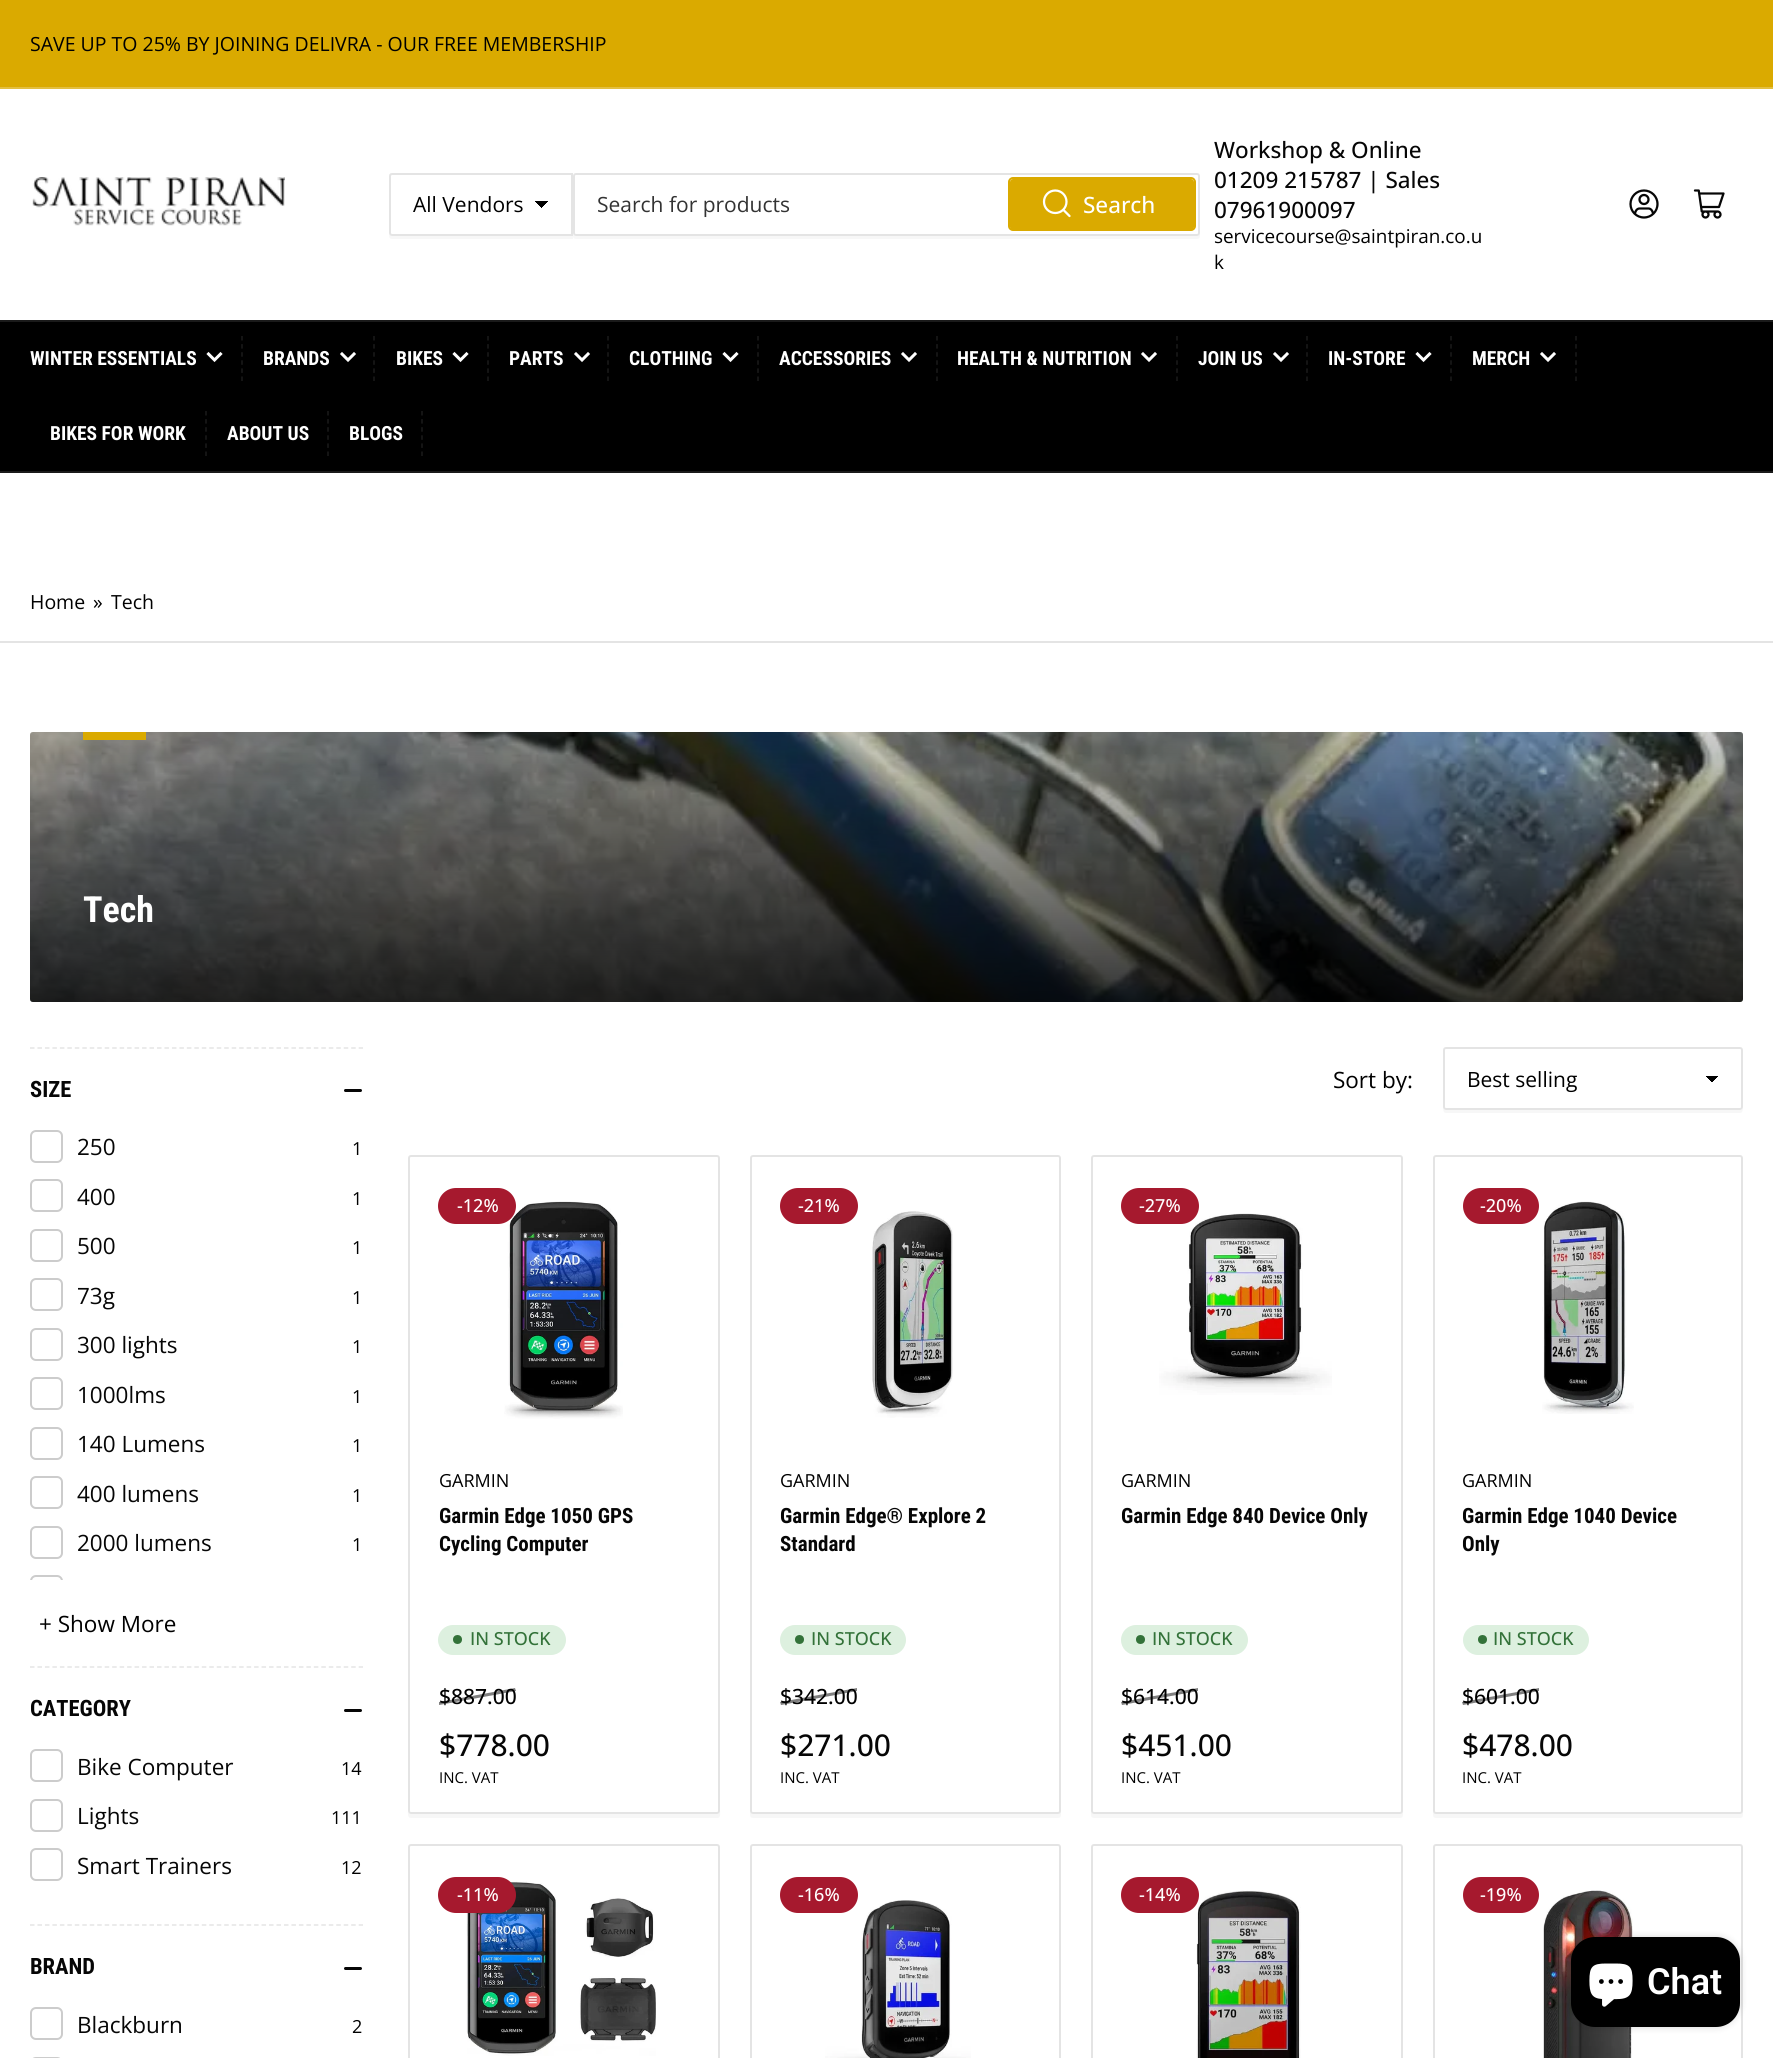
#include <cairo.h>
#include <math.h>
#include <stddef.h>

typedef struct { double x, y; const char *s; } line_t;
typedef struct { double x, y, w, h; unsigned color; } box_t;

static void ink(cairo_t *ctx, unsigned color) {
    cairo_set_source_rgb(ctx, (color >> 16) / 255.0, (color >> 8 & 255) / 255.0, (color & 255) / 255.0);
}

static void round_path(cairo_t *ctx, double x, double y, double w, double h, double r) {
    cairo_new_sub_path(ctx);
    cairo_arc(ctx, x + w - r, y + h - r, r, 0, M_PI / 2);
    cairo_arc(ctx, x + r, y + h - r, r, M_PI / 2, M_PI);
    cairo_arc(ctx, x + r, y + r, r, M_PI, 1.5 * M_PI);
    cairo_arc(ctx, x + w - r, y + r, r, 1.5 * M_PI, 2 * M_PI);
    cairo_close_path(ctx);
}

static void blur_box(cairo_t *ctx, double x, double y, double w, double h, double r, double blur, double alpha) {
    cairo_push_group_with_content(ctx, CAIRO_CONTENT_ALPHA);
    cairo_set_operator(ctx, CAIRO_OPERATOR_SOURCE);
    for (int i = 15; i >= -15 && fmin(w, h) + blur * i / 3 > 0; i -= 2) {
        double e = blur * i / 6;
        cairo_set_source_rgba(ctx, 0, 0, 0, alpha * erfc((i - 1) / 8.5) / 2);
        round_path(ctx, x - e, y - e, w + 2 * e, h + 2 * e, fmax(0, fmin(r + e + blur * .6, fmin(w, h) / 2 + e)));
        cairo_fill(ctx);
    }
    cairo_pattern_t *soft = cairo_pop_group(ctx);
    cairo_mask(ctx, soft);
    cairo_pattern_destroy(soft);
}

static void paste(cairo_t *ctx, const char *path, double x, double y, double w, double h) {
    cairo_surface_t *image = cairo_image_surface_create_from_png(path);
    cairo_save(ctx);
    cairo_set_source_surface(ctx, image, x, y);
    cairo_rectangle(ctx, x, y, w, h);
    cairo_fill(ctx);
    cairo_restore(ctx);
    cairo_surface_destroy(image);
}

int main(void) {
    cairo_surface_t *surface = cairo_image_surface_create(CAIRO_FORMAT_RGB24, 1773, 2058);
    cairo_t *ctx = cairo_create(surface);
    cairo_font_options_t *options = cairo_font_options_create();
    cairo_font_options_set_hint_metrics(options, CAIRO_HINT_METRICS_OFF);
    cairo_font_options_set_hint_style(options, CAIRO_HINT_STYLE_NONE);
    cairo_set_font_options(ctx, options);
    cairo_set_miter_limit(ctx, 4);
    cairo_pattern_t *gradient;
    ink(ctx, 0xFFFFFF);
    cairo_paint(ctx);
    ink(ctx, 0xDAAA00);
    cairo_rectangle(ctx, 0, 0, 1773, 87);
    cairo_fill(ctx);
    ink(ctx, 0xE3BF40);
    cairo_rectangle(ctx, 0, 87, 1773, 2);
    cairo_fill(ctx);
    cairo_select_font_face(ctx, "Open Sans", CAIRO_FONT_SLANT_NORMAL, CAIRO_FONT_WEIGHT_NORMAL);
    cairo_set_font_size(ctx, 19.5);
    ink(ctx, 0x000000);
    cairo_move_to(ctx, 30, 51);
    cairo_show_text(ctx, "SAVE UP TO 25% BY JOINING DELIVRA - OUR FREE MEMBERSHIP");
    paste(ctx, "media/1.png", 32, 177, 253, 49);
    round_path(ctx, 390, 174, 182, 61, 2);
    ink(ctx, 0xE4E4E4);
    cairo_stroke(ctx);
    ink(ctx, 0xF7F7F7);
    cairo_new_path(ctx);
    cairo_move_to(ctx, 389, 234);
    cairo_curve_to(ctx, 389, 236, 389, 239, 392, 239);
    cairo_line_to(ctx, 573, 239);
    cairo_line_to(ctx, 573, 236);
    cairo_line_to(ctx, 392, 236);
    cairo_curve_to(ctx, 390, 236, 390, 235, 389, 234);
    cairo_close_path(ctx);
    cairo_fill(ctx);
    ink(ctx, 0xFFFFFF);
    cairo_new_path(ctx);
    cairo_move_to(ctx, 392, 173);
    cairo_line_to(ctx, 573, 173);
    cairo_line_to(ctx, 573, 236);
    cairo_line_to(ctx, 392, 236);
    cairo_curve_to(ctx, 390.5, 236, 389, 234.5, 389, 233);
    cairo_line_to(ctx, 389, 176);
    cairo_curve_to(ctx, 389, 174.5, 390.5, 173, 392, 173);
    cairo_close_path(ctx);
    cairo_fill(ctx);
    gradient = cairo_pattern_create_linear(542, 200, 549, 208);
    cairo_pattern_add_color_stop_rgba(gradient, 0.5, 0, 0, 0, 1);
    cairo_pattern_add_color_stop_rgba(gradient, 0.5, 1, 1, 1, 1);
    cairo_set_source(ctx, gradient);
    cairo_pattern_destroy(gradient);
    cairo_rectangle(ctx, 542, 201, 6, 8);
    cairo_fill(ctx);
    gradient = cairo_pattern_create_linear(534, 208, 542, 200);
    cairo_pattern_add_color_stop_rgba(gradient, 0.5, 1, 1, 1, 1);
    cairo_pattern_add_color_stop_rgba(gradient, 0.5, 0, 0, 0, 1);
    cairo_set_source(ctx, gradient);
    cairo_pattern_destroy(gradient);
    cairo_rectangle(ctx, 534, 201, 8, 7);
    cairo_fill(ctx);
    cairo_new_path(ctx);
    cairo_move_to(ctx, 392, 174);
    cairo_line_to(ctx, 572, 174);
    cairo_line_to(ctx, 572, 235);
    cairo_line_to(ctx, 392, 235);
    cairo_curve_to(ctx, 391, 235, 390, 234, 390, 233);
    cairo_line_to(ctx, 390, 176);
    cairo_curve_to(ctx, 390, 175, 391, 174, 392, 174);
    cairo_close_path(ctx);
    ink(ctx, 0xE4E4E4);
    cairo_stroke(ctx);
    cairo_set_font_size(ctx, 21);
    ink(ctx, 0x000000);
    cairo_move_to(ctx, 413, 212);
    cairo_show_text(ctx, "All Vendors");
    ink(ctx, 0xF7F7F7);
    cairo_new_path(ctx);
    cairo_move_to(ctx, 573, 232);
    cairo_line_to(ctx, 573, 236);
    cairo_curve_to(ctx, 573, 238, 574, 239, 576, 239);
    cairo_line_to(ctx, 1197, 239);
    cairo_curve_to(ctx, 1199, 239, 1200, 238, 1200, 236);
    cairo_line_to(ctx, 1200, 232);
    cairo_curve_to(ctx, 1200, 234, 1199, 236, 1197, 236);
    cairo_line_to(ctx, 576, 236);
    cairo_curve_to(ctx, 574, 236, 573, 234, 573, 232);
    cairo_close_path(ctx);
    cairo_fill(ctx);
    ink(ctx, 0xFFFFFF);
    round_path(ctx, 574, 174, 625, 61, 2);
    cairo_fill_preserve(ctx);
    ink(ctx, 0xE4E4E4);
    cairo_stroke(ctx);
    ink(ctx, 0x333333);
    cairo_move_to(ctx, 597, 212);
    cairo_show_text(ctx, "Search for products");
    round_path(ctx, 1009, 178, 186, 52, 4);
    ink(ctx, 0xDAAA00);
    cairo_stroke(ctx);
    round_path(ctx, 1010, 179, 184, 51, 3);
    cairo_fill(ctx);
    paste(ctx, "media/2.png", 1042, 189, 29, 29);
    cairo_select_font_face(ctx, "Open Sans Medium", CAIRO_FONT_SLANT_NORMAL, CAIRO_FONT_WEIGHT_NORMAL);
    cairo_set_font_size(ctx, 22.5);
    ink(ctx, 0xFFFFFF);
    cairo_move_to(ctx, 1083, 213);
    cairo_show_text(ctx, "Search");
    ink(ctx, 0x060606);
    {
        static const line_t items[] = {
            {1214, 158, "Workshop & Online"},
            {1214, 188, "01209 215787 | Sales"},
            {1214, 218, "07961900097"},
        };
        for (size_t i = 0; i < sizeof items / sizeof *items; i++) {
            cairo_move_to(ctx, items[i].x, items[i].y);
            cairo_show_text(ctx, items[i].s);
        }
    }
    cairo_select_font_face(ctx, "Open Sans", CAIRO_FONT_SLANT_NORMAL, CAIRO_FONT_WEIGHT_NORMAL);
    cairo_set_font_size(ctx, 18.9);
    ink(ctx, 0x000000);
    cairo_move_to(ctx, 1214, 243);
    cairo_show_text(ctx, "servicecourse@saintpiran.co.u");
    cairo_move_to(ctx, 1214, 269);
    cairo_show_text(ctx, "k");
    paste(ctx, "media/3.png", 1629, 189, 30, 30);
    paste(ctx, "media/4.png", 1693, 189, 32, 30);
    {
        static const box_t items[] = {
            {0, 322, 1773, 149, 0x000000},
            {0, 320, 1773, 2, 0x1A1A1A},
            {0, 471, 1773, 2, 0x1A1A1A},
        };
        for (size_t i = 0; i < sizeof items / sizeof *items; i++) {
            ink(ctx, items[i].color);
            cairo_rectangle(ctx, items[i].x, items[i].y, items[i].w, items[i].h);
            cairo_fill(ctx);
        }
    }
    cairo_select_font_face(ctx, "Roboto Condensed", CAIRO_FONT_SLANT_NORMAL, CAIRO_FONT_WEIGHT_BOLD);
    cairo_set_font_size(ctx, 19.5);
    ink(ctx, 0xFFFFFF);
    cairo_move_to(ctx, 30, 365);
    cairo_show_text(ctx, "WINTER ESSENTIALS");
    cairo_new_path(ctx);
    cairo_move_to(ctx, 220.5, 354);
    cairo_line_to(ctx, 214.5, 360);
    cairo_line_to(ctx, 208.5, 354);
    cairo_set_line_width(ctx, 3);
    cairo_set_line_cap(ctx, CAIRO_LINE_CAP_SQUARE);
    cairo_stroke(ctx);
    cairo_new_path(ctx);
    cairo_move_to(ctx, 242, 336);
    cairo_line_to(ctx, 242, 381);
    ink(ctx, 0x1A1A1A);
    cairo_set_line_width(ctx, 1.5);
    cairo_set_line_cap(ctx, CAIRO_LINE_CAP_BUTT);
    cairo_set_dash(ctx, (double[]){4.5, 3.6}, 2, 0);
    cairo_stroke(ctx);
    ink(ctx, 0xFFFFFF);
    cairo_move_to(ctx, 263, 365);
    cairo_show_text(ctx, "BRANDS");
    cairo_new_path(ctx);
    cairo_move_to(ctx, 354, 354);
    cairo_line_to(ctx, 348, 360);
    cairo_line_to(ctx, 342, 354);
    cairo_set_line_width(ctx, 3);
    cairo_set_line_cap(ctx, CAIRO_LINE_CAP_SQUARE);
    cairo_set_dash(ctx, NULL, 0, 0);
    cairo_stroke(ctx);
    cairo_new_path(ctx);
    cairo_move_to(ctx, 374, 336);
    cairo_line_to(ctx, 374, 381);
    ink(ctx, 0x1A1A1A);
    cairo_set_line_width(ctx, 1.5);
    cairo_set_line_cap(ctx, CAIRO_LINE_CAP_BUTT);
    cairo_set_dash(ctx, (double[]){4.5, 3.6}, 2, 0);
    cairo_stroke(ctx);
    ink(ctx, 0xFFFFFF);
    cairo_move_to(ctx, 396, 365);
    cairo_show_text(ctx, "BIKES");
    cairo_new_path(ctx);
    cairo_move_to(ctx, 466.5, 354);
    cairo_line_to(ctx, 460.5, 360);
    cairo_line_to(ctx, 454.5, 354);
    cairo_set_line_width(ctx, 3);
    cairo_set_line_cap(ctx, CAIRO_LINE_CAP_SQUARE);
    cairo_set_dash(ctx, NULL, 0, 0);
    cairo_stroke(ctx);
    cairo_new_path(ctx);
    cairo_move_to(ctx, 488, 336);
    cairo_line_to(ctx, 488, 381);
    ink(ctx, 0x1A1A1A);
    cairo_set_line_width(ctx, 1.5);
    cairo_set_line_cap(ctx, CAIRO_LINE_CAP_BUTT);
    cairo_set_dash(ctx, (double[]){4.5, 3.6}, 2, 0);
    cairo_stroke(ctx);
    ink(ctx, 0xFFFFFF);
    cairo_move_to(ctx, 509, 365);
    cairo_show_text(ctx, "PARTS");
    cairo_new_path(ctx);
    cairo_move_to(ctx, 588, 354);
    cairo_line_to(ctx, 582, 360);
    cairo_line_to(ctx, 576, 354);
    cairo_set_line_width(ctx, 3);
    cairo_set_line_cap(ctx, CAIRO_LINE_CAP_SQUARE);
    cairo_set_dash(ctx, NULL, 0, 0);
    cairo_stroke(ctx);
    cairo_new_path(ctx);
    cairo_move_to(ctx, 608, 336);
    cairo_line_to(ctx, 608, 381);
    ink(ctx, 0x1A1A1A);
    cairo_set_line_width(ctx, 1.5);
    cairo_set_line_cap(ctx, CAIRO_LINE_CAP_BUTT);
    cairo_set_dash(ctx, (double[]){4.5, 3.6}, 2, 0);
    cairo_stroke(ctx);
    ink(ctx, 0xFFFFFF);
    cairo_move_to(ctx, 629, 365);
    cairo_show_text(ctx, "CLOTHING");
    cairo_new_path(ctx);
    cairo_move_to(ctx, 736.5, 354);
    cairo_line_to(ctx, 730.5, 360);
    cairo_line_to(ctx, 724.5, 354);
    cairo_set_line_width(ctx, 3);
    cairo_set_line_cap(ctx, CAIRO_LINE_CAP_SQUARE);
    cairo_set_dash(ctx, NULL, 0, 0);
    cairo_stroke(ctx);
    cairo_new_path(ctx);
    cairo_move_to(ctx, 758, 336);
    cairo_line_to(ctx, 758, 381);
    ink(ctx, 0x1A1A1A);
    cairo_set_line_width(ctx, 1.5);
    cairo_set_line_cap(ctx, CAIRO_LINE_CAP_BUTT);
    cairo_set_dash(ctx, (double[]){4.5, 3.6}, 2, 0);
    cairo_stroke(ctx);
    ink(ctx, 0xFFFFFF);
    cairo_move_to(ctx, 779, 365);
    cairo_show_text(ctx, "ACCESSORIES");
    cairo_new_path(ctx);
    cairo_move_to(ctx, 915, 354);
    cairo_line_to(ctx, 909, 360);
    cairo_line_to(ctx, 903, 354);
    cairo_set_line_width(ctx, 3);
    cairo_set_line_cap(ctx, CAIRO_LINE_CAP_SQUARE);
    cairo_set_dash(ctx, NULL, 0, 0);
    cairo_stroke(ctx);
    cairo_new_path(ctx);
    cairo_move_to(ctx, 937, 336);
    cairo_line_to(ctx, 937, 381);
    ink(ctx, 0x1A1A1A);
    cairo_set_line_width(ctx, 1.5);
    cairo_set_line_cap(ctx, CAIRO_LINE_CAP_BUTT);
    cairo_set_dash(ctx, (double[]){4.5, 3.6}, 2, 0);
    cairo_stroke(ctx);
    ink(ctx, 0xFFFFFF);
    cairo_move_to(ctx, 957, 365);
    cairo_show_text(ctx, "HEALTH & NUTRITION");
    cairo_new_path(ctx);
    cairo_move_to(ctx, 1155, 354);
    cairo_line_to(ctx, 1149, 360);
    cairo_line_to(ctx, 1143, 354);
    cairo_set_line_width(ctx, 3);
    cairo_set_line_cap(ctx, CAIRO_LINE_CAP_SQUARE);
    cairo_set_dash(ctx, NULL, 0, 0);
    cairo_stroke(ctx);
    cairo_new_path(ctx);
    cairo_move_to(ctx, 1177, 336);
    cairo_line_to(ctx, 1177, 381);
    ink(ctx, 0x1A1A1A);
    cairo_set_line_width(ctx, 1.5);
    cairo_set_line_cap(ctx, CAIRO_LINE_CAP_BUTT);
    cairo_set_dash(ctx, (double[]){4.5, 3.6}, 2, 0);
    cairo_stroke(ctx);
    ink(ctx, 0xFFFFFF);
    cairo_move_to(ctx, 1198, 365);
    cairo_show_text(ctx, "JOIN US");
    cairo_new_path(ctx);
    cairo_move_to(ctx, 1287, 354);
    cairo_line_to(ctx, 1281, 360);
    cairo_line_to(ctx, 1275, 354);
    cairo_set_line_width(ctx, 3);
    cairo_set_line_cap(ctx, CAIRO_LINE_CAP_SQUARE);
    cairo_set_dash(ctx, NULL, 0, 0);
    cairo_stroke(ctx);
    cairo_new_path(ctx);
    cairo_move_to(ctx, 1307, 336);
    cairo_line_to(ctx, 1307, 381);
    ink(ctx, 0x1A1A1A);
    cairo_set_line_width(ctx, 1.5);
    cairo_set_line_cap(ctx, CAIRO_LINE_CAP_BUTT);
    cairo_set_dash(ctx, (double[]){4.5, 3.6}, 2, 0);
    cairo_stroke(ctx);
    ink(ctx, 0xFFFFFF);
    cairo_move_to(ctx, 1328, 365);
    cairo_show_text(ctx, "IN-STORE");
    cairo_new_path(ctx);
    cairo_move_to(ctx, 1429.5, 354);
    cairo_line_to(ctx, 1423.5, 360);
    cairo_line_to(ctx, 1417.5, 354);
    cairo_set_line_width(ctx, 3);
    cairo_set_line_cap(ctx, CAIRO_LINE_CAP_SQUARE);
    cairo_set_dash(ctx, NULL, 0, 0);
    cairo_stroke(ctx);
    cairo_new_path(ctx);
    cairo_move_to(ctx, 1451, 336);
    cairo_line_to(ctx, 1451, 381);
    ink(ctx, 0x1A1A1A);
    cairo_set_line_width(ctx, 1.5);
    cairo_set_line_cap(ctx, CAIRO_LINE_CAP_BUTT);
    cairo_set_dash(ctx, (double[]){4.5, 3.6}, 2, 0);
    cairo_stroke(ctx);
    ink(ctx, 0xFFFFFF);
    cairo_move_to(ctx, 1472, 365);
    cairo_show_text(ctx, "MERCH");
    cairo_new_path(ctx);
    cairo_move_to(ctx, 1554, 354);
    cairo_line_to(ctx, 1548, 360);
    cairo_line_to(ctx, 1542, 354);
    cairo_set_line_width(ctx, 3);
    cairo_set_line_cap(ctx, CAIRO_LINE_CAP_SQUARE);
    cairo_set_dash(ctx, NULL, 0, 0);
    cairo_stroke(ctx);
    cairo_new_path(ctx);
    cairo_move_to(ctx, 1576, 336);
    cairo_line_to(ctx, 1576, 381);
    ink(ctx, 0x1A1A1A);
    cairo_set_line_width(ctx, 1.5);
    cairo_set_line_cap(ctx, CAIRO_LINE_CAP_BUTT);
    cairo_set_dash(ctx, (double[]){4.5, 3.6}, 2, 0);
    cairo_stroke(ctx);
    ink(ctx, 0xFFFFFF);
    cairo_move_to(ctx, 50, 440);
    cairo_show_text(ctx, "BIKES FOR WORK");
    cairo_new_path(ctx);
    cairo_move_to(ctx, 206, 411);
    cairo_line_to(ctx, 206, 456);
    ink(ctx, 0x1A1A1A);
    cairo_stroke(ctx);
    ink(ctx, 0xFFFFFF);
    cairo_move_to(ctx, 227, 440);
    cairo_show_text(ctx, "ABOUT US");
    cairo_new_path(ctx);
    cairo_move_to(ctx, 328, 411);
    cairo_line_to(ctx, 328, 456);
    ink(ctx, 0x1A1A1A);
    cairo_stroke(ctx);
    ink(ctx, 0xFFFFFF);
    cairo_move_to(ctx, 349, 440);
    cairo_show_text(ctx, "BLOGS");
    cairo_new_path(ctx);
    cairo_move_to(ctx, 422, 411);
    cairo_line_to(ctx, 422, 456);
    ink(ctx, 0x1A1A1A);
    cairo_stroke(ctx);
    ink(ctx, 0xE4E4E4);
    cairo_rectangle(ctx, 0, 641, 1773, 2);
    cairo_fill(ctx);
    cairo_select_font_face(ctx, "Open Sans", CAIRO_FONT_SLANT_NORMAL, CAIRO_FONT_WEIGHT_NORMAL);
    ink(ctx, 0x000000);
    {
        static const line_t items[] = {
            {30, 609, "Home"},
            {93, 609, "»"},
            {111, 609, "Tech"},
        };
        for (size_t i = 0; i < sizeof items / sizeof *items; i++) {
            cairo_move_to(ctx, items[i].x, items[i].y);
            cairo_show_text(ctx, items[i].s);
        }
    }
    paste(ctx, "media/5.png", 30, 732, 1713, 270);
    gradient = cairo_pattern_create_linear(887, 651, 887, 1002);
    cairo_pattern_add_color_stop_rgba(gradient, 0, 0, 0, 0, 0);
    cairo_pattern_add_color_stop_rgba(gradient, 1, 0, 0, 0, 0.8);
    cairo_set_source(ctx, gradient);
    cairo_pattern_destroy(gradient);
    round_path(ctx, 30, 732, 1713, 270, 3);
    cairo_fill(ctx);
    ink(ctx, 0xDAAA00);
    cairo_rectangle(ctx, 83, 732, 63, 8);
    cairo_fill(ctx);
    cairo_select_font_face(ctx, "Roboto Condensed", CAIRO_FONT_SLANT_NORMAL, CAIRO_FONT_WEIGHT_BOLD);
    cairo_set_font_size(ctx, 36);
    ink(ctx, 0xFFFFFF);
    cairo_move_to(ctx, 83, 922);
    cairo_show_text(ctx, "Tech");
    cairo_new_path(ctx);
    cairo_move_to(ctx, 30, 1048);
    cairo_line_to(ctx, 363, 1048);
    ink(ctx, 0xE4E4E4);
    cairo_set_dash(ctx, (double[]){4.5, 2.97}, 2, 0);
    cairo_stroke(ctx);
    cairo_new_path(ctx);
    cairo_move_to(ctx, 30, 1667);
    cairo_line_to(ctx, 363, 1667);
    cairo_stroke(ctx);
    cairo_set_font_size(ctx, 22.5);
    ink(ctx, 0x060606);
    cairo_move_to(ctx, 30, 1097);
    cairo_show_text(ctx, "SIZE");
    round_path(ctx, 344, 1089, 10, 3, 1.5);
    cairo_fill(ctx);
    round_path(ctx, 350, 1089, 12, 3, 1.5);
    cairo_fill(ctx);
    round_path(ctx, 31, 1131, 31, 31, 5);
    ink(ctx, 0xCCCCCC);
    cairo_set_line_width(ctx, 2);
    cairo_set_dash(ctx, NULL, 0, 0);
    cairo_stroke(ctx);
    cairo_select_font_face(ctx, "Open Sans", CAIRO_FONT_SLANT_NORMAL, CAIRO_FONT_WEIGHT_NORMAL);
    ink(ctx, 0x060606);
    cairo_move_to(ctx, 77, 1155);
    cairo_show_text(ctx, "250");
    cairo_set_font_size(ctx, 18);
    ink(ctx, 0x000000);
    cairo_move_to(ctx, 352, 1155);
    cairo_show_text(ctx, "1");
    round_path(ctx, 31, 1180, 31, 31, 5);
    ink(ctx, 0xCCCCCC);
    cairo_stroke(ctx);
    cairo_set_font_size(ctx, 22.5);
    ink(ctx, 0x060606);
    cairo_move_to(ctx, 77, 1205);
    cairo_show_text(ctx, "400");
    cairo_set_font_size(ctx, 18);
    ink(ctx, 0x000000);
    cairo_move_to(ctx, 352, 1205);
    cairo_show_text(ctx, "1");
    round_path(ctx, 31, 1230, 31, 31, 5);
    ink(ctx, 0xCCCCCC);
    cairo_stroke(ctx);
    cairo_set_font_size(ctx, 22.5);
    ink(ctx, 0x060606);
    cairo_move_to(ctx, 77, 1254);
    cairo_show_text(ctx, "500");
    cairo_set_font_size(ctx, 18);
    ink(ctx, 0x000000);
    cairo_move_to(ctx, 352, 1254);
    cairo_show_text(ctx, "1");
    round_path(ctx, 31, 1279, 31, 31, 5);
    ink(ctx, 0xCCCCCC);
    cairo_stroke(ctx);
    cairo_set_font_size(ctx, 22.5);
    ink(ctx, 0x060606);
    cairo_move_to(ctx, 77, 1304);
    cairo_show_text(ctx, "73g");
    cairo_set_font_size(ctx, 18);
    ink(ctx, 0x000000);
    cairo_move_to(ctx, 352, 1304);
    cairo_show_text(ctx, "1");
    round_path(ctx, 31, 1329, 31, 31, 5);
    ink(ctx, 0xCCCCCC);
    cairo_stroke(ctx);
    cairo_set_font_size(ctx, 22.5);
    ink(ctx, 0x060606);
    cairo_move_to(ctx, 77, 1353);
    cairo_show_text(ctx, "300 lights");
    cairo_set_font_size(ctx, 18);
    ink(ctx, 0x000000);
    cairo_move_to(ctx, 352, 1353);
    cairo_show_text(ctx, "1");
    round_path(ctx, 31, 1378, 31, 31, 5);
    ink(ctx, 0xCCCCCC);
    cairo_stroke(ctx);
    cairo_set_font_size(ctx, 22.5);
    ink(ctx, 0x060606);
    cairo_move_to(ctx, 77, 1403);
    cairo_show_text(ctx, "1000lms");
    cairo_set_font_size(ctx, 18);
    ink(ctx, 0x000000);
    cairo_move_to(ctx, 352, 1403);
    cairo_show_text(ctx, "1");
    round_path(ctx, 31, 1428, 31, 31, 5);
    ink(ctx, 0xCCCCCC);
    cairo_stroke(ctx);
    cairo_set_font_size(ctx, 22.5);
    ink(ctx, 0x060606);
    cairo_move_to(ctx, 77, 1452);
    cairo_show_text(ctx, "140 Lumens");
    cairo_set_font_size(ctx, 18);
    ink(ctx, 0x000000);
    cairo_move_to(ctx, 352, 1452);
    cairo_show_text(ctx, "1");
    round_path(ctx, 31, 1477, 31, 31, 5);
    ink(ctx, 0xCCCCCC);
    cairo_stroke(ctx);
    cairo_set_font_size(ctx, 22.5);
    ink(ctx, 0x060606);
    cairo_move_to(ctx, 77, 1502);
    cairo_show_text(ctx, "400 lumens");
    cairo_set_font_size(ctx, 18);
    ink(ctx, 0x000000);
    cairo_move_to(ctx, 352, 1502);
    cairo_show_text(ctx, "1");
    round_path(ctx, 31, 1527, 31, 31, 5);
    ink(ctx, 0xCCCCCC);
    cairo_stroke(ctx);
    cairo_set_font_size(ctx, 22.5);
    ink(ctx, 0x060606);
    cairo_move_to(ctx, 77, 1551);
    cairo_show_text(ctx, "2000 lumens");
    cairo_set_font_size(ctx, 18);
    ink(ctx, 0x000000);
    cairo_move_to(ctx, 352, 1551);
    cairo_show_text(ctx, "1");
    cairo_save(ctx);
    cairo_rectangle(ctx, 30, 1130, 333, 450);
    cairo_clip(ctx);
    round_path(ctx, 31, 1576, 31, 31, 5);
    ink(ctx, 0xCCCCCC);
    cairo_stroke(ctx);
    cairo_restore(ctx);
    cairo_set_font_size(ctx, 22.5);
    cairo_move_to(ctx, 39, 1632);
    cairo_show_text(ctx, "+ Show More");
    cairo_new_path(ctx);
    cairo_move_to(ctx, 30, 1925);
    cairo_line_to(ctx, 363, 1925);
    ink(ctx, 0xE4E4E4);
    cairo_set_line_width(ctx, 1.5);
    cairo_set_dash(ctx, (double[]){4.5, 2.97}, 2, 0);
    cairo_stroke(ctx);
    cairo_select_font_face(ctx, "Roboto Condensed", CAIRO_FONT_SLANT_NORMAL, CAIRO_FONT_WEIGHT_BOLD);
    ink(ctx, 0x060606);
    cairo_move_to(ctx, 30, 1716);
    cairo_show_text(ctx, "CATEGORY");
    round_path(ctx, 344, 1709, 10, 3, 1.5);
    cairo_fill(ctx);
    round_path(ctx, 350, 1709, 12, 3, 1.5);
    cairo_fill(ctx);
    round_path(ctx, 31, 1750, 31, 31, 5);
    ink(ctx, 0xCCCCCC);
    cairo_set_line_width(ctx, 2);
    cairo_set_dash(ctx, NULL, 0, 0);
    cairo_stroke(ctx);
    cairo_select_font_face(ctx, "Open Sans", CAIRO_FONT_SLANT_NORMAL, CAIRO_FONT_WEIGHT_NORMAL);
    ink(ctx, 0x060606);
    cairo_move_to(ctx, 77, 1775);
    cairo_show_text(ctx, "Bike Computer");
    cairo_set_font_size(ctx, 18);
    ink(ctx, 0x000000);
    cairo_move_to(ctx, 341, 1775);
    cairo_show_text(ctx, "14");
    round_path(ctx, 31, 1800, 31, 31, 5);
    ink(ctx, 0xCCCCCC);
    cairo_stroke(ctx);
    cairo_set_font_size(ctx, 22.5);
    ink(ctx, 0x060606);
    cairo_move_to(ctx, 77, 1824);
    cairo_show_text(ctx, "Lights");
    cairo_set_font_size(ctx, 18);
    ink(ctx, 0x000000);
    cairo_move_to(ctx, 331, 1824);
    cairo_show_text(ctx, "111");
    round_path(ctx, 31, 1849, 31, 31, 5);
    ink(ctx, 0xCCCCCC);
    cairo_stroke(ctx);
    cairo_set_font_size(ctx, 22.5);
    ink(ctx, 0x060606);
    cairo_move_to(ctx, 77, 1874);
    cairo_show_text(ctx, "Smart Trainers");
    cairo_set_font_size(ctx, 18);
    ink(ctx, 0x000000);
    cairo_move_to(ctx, 341, 1874);
    cairo_show_text(ctx, "12");
    cairo_select_font_face(ctx, "Roboto Condensed", CAIRO_FONT_SLANT_NORMAL, CAIRO_FONT_WEIGHT_BOLD);
    cairo_set_font_size(ctx, 22.5);
    ink(ctx, 0x060606);
    cairo_move_to(ctx, 30, 1974);
    cairo_show_text(ctx, "BRAND");
    round_path(ctx, 344, 1967, 10, 3, 1.5);
    cairo_fill(ctx);
    round_path(ctx, 350, 1967, 12, 3, 1.5);
    cairo_fill(ctx);
    round_path(ctx, 31, 2008, 31, 31, 5);
    ink(ctx, 0xCCCCCC);
    cairo_stroke(ctx);
    cairo_select_font_face(ctx, "Open Sans", CAIRO_FONT_SLANT_NORMAL, CAIRO_FONT_WEIGHT_NORMAL);
    ink(ctx, 0x060606);
    cairo_move_to(ctx, 77, 2033);
    cairo_show_text(ctx, "Blackburn");
    cairo_set_font_size(ctx, 18);
    ink(ctx, 0x000000);
    cairo_move_to(ctx, 352, 2033);
    cairo_show_text(ctx, "2");
    round_path(ctx, 31, 2058, 31, 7, 5);
    ink(ctx, 0xCCCCCC);
    cairo_stroke(ctx);
    cairo_set_font_size(ctx, 22.5);
    ink(ctx, 0x000000);
    cairo_move_to(ctx, 1333, 1088);
    cairo_show_text(ctx, "Sort by:");
    ink(ctx, 0xF7F7F7);
    cairo_new_path(ctx);
    cairo_move_to(ctx, 1443, 1107);
    cairo_curve_to(ctx, 1443, 1109, 1443, 1113, 1446, 1113);
    cairo_line_to(ctx, 1740, 1113);
    cairo_curve_to(ctx, 1743, 1113, 1743, 1109, 1743, 1107);
    cairo_curve_to(ctx, 1743, 1109, 1742, 1110, 1740, 1110);
    cairo_line_to(ctx, 1446, 1110);
    cairo_curve_to(ctx, 1444, 1110, 1443, 1109, 1443, 1107);
    cairo_close_path(ctx);
    cairo_fill(ctx);
    gradient = cairo_pattern_create_linear(1712, 1075, 1719, 1082);
    cairo_pattern_add_color_stop_rgba(gradient, 0.5, 0, 0, 0, 1);
    cairo_pattern_add_color_stop_rgba(gradient, 0.5, 1, 1, 1, 1);
    cairo_set_source(ctx, gradient);
    cairo_pattern_destroy(gradient);
    cairo_rectangle(ctx, 1712, 1076, 7, 6);
    cairo_fill(ctx);
    gradient = cairo_pattern_create_linear(1704, 1082, 1712, 1075);
    cairo_pattern_add_color_stop_rgba(gradient, 0.5, 1, 1, 1, 1);
    cairo_pattern_add_color_stop_rgba(gradient, 0.5, 0, 0, 0, 1);
    cairo_set_source(ctx, gradient);
    cairo_pattern_destroy(gradient);
    cairo_rectangle(ctx, 1704, 1076, 8, 6);
    cairo_fill(ctx);
    round_path(ctx, 1444, 1048, 298, 61, 2);
    ink(ctx, 0xE4E4E4);
    cairo_stroke(ctx);
    cairo_set_font_size(ctx, 21);
    ink(ctx, 0x000000);
    cairo_move_to(ctx, 1467, 1087);
    cairo_show_text(ctx, "Best selling");
    ink(ctx, 0xF7F7F7);
    cairo_new_path(ctx);
    cairo_move_to(ctx, 408, 1810);
    cairo_curve_to(ctx, 408, 1813, 407, 1818, 411, 1818);
    cairo_line_to(ctx, 718, 1818);
    cairo_curve_to(ctx, 721, 1817, 720, 1813, 720, 1810);
    cairo_curve_to(ctx, 720, 1812, 719, 1814, 717, 1814);
    cairo_line_to(ctx, 411, 1814);
    cairo_curve_to(ctx, 409, 1814, 408, 1812, 408, 1810);
    cairo_close_path(ctx);
    cairo_fill(ctx);
    ink(ctx, 0xFFFFFF);
    round_path(ctx, 409, 1156, 310, 657, 2);
    cairo_fill_preserve(ctx);
    ink(ctx, 0xE4E4E4);
    cairo_stroke(ctx);
    paste(ctx, "media/6.png", 504, 1201, 119, 218);
    ink(ctx, 0xA6192E);
    round_path(ctx, 439.5, 1189.5, 75, 33, 16.5);
    cairo_fill_preserve(ctx);
    cairo_set_line_width(ctx, 3);
    cairo_stroke(ctx);
    cairo_select_font_face(ctx, "Open Sans Medium", CAIRO_FONT_SLANT_NORMAL, CAIRO_FONT_WEIGHT_NORMAL);
    cairo_set_font_size(ctx, 18);
    ink(ctx, 0xFFFFFF);
    cairo_move_to(ctx, 457, 1212);
    cairo_show_text(ctx, "-12%");
    cairo_select_font_face(ctx, "Open Sans", CAIRO_FONT_SLANT_NORMAL, CAIRO_FONT_WEIGHT_NORMAL);
    ink(ctx, 0x000000);
    cairo_move_to(ctx, 439, 1487);
    cairo_show_text(ctx, "GARMIN");
    cairo_select_font_face(ctx, "Roboto Condensed", CAIRO_FONT_SLANT_NORMAL, CAIRO_FONT_WEIGHT_BOLD);
    cairo_set_font_size(ctx, 21);
    ink(ctx, 0x060606);
    cairo_move_to(ctx, 439, 1523);
    cairo_show_text(ctx, "Garmin Edge 1050 GPS");
    cairo_move_to(ctx, 439, 1551);
    cairo_show_text(ctx, "Cycling Computer");
    ink(ctx, 0xDDF0DF);
    round_path(ctx, 438, 1625, 128, 30, 15);
    cairo_fill(ctx);
    ink(ctx, 0x337239);
    cairo_arc(ctx, 457.5, 1639.5, 4.5, 0, 2 * M_PI);
    cairo_fill(ctx);
    cairo_select_font_face(ctx, "Open Sans Medium", CAIRO_FONT_SLANT_NORMAL, CAIRO_FONT_WEIGHT_NORMAL);
    cairo_set_font_size(ctx, 18);
    cairo_move_to(ctx, 470, 1645);
    cairo_show_text(ctx, "IN STOCK");
    cairo_set_font_size(ctx, 21);
    ink(ctx, 0x000000);
    cairo_move_to(ctx, 439, 1704);
    cairo_show_text(ctx, "$887.00");
    cairo_set_source_rgba(ctx, 0, 0, 0, 0.5);
    cairo_new_path(ctx);
    cairo_move_to(ctx, 439, 1702);
    cairo_line_to(ctx, 515, 1688);
    cairo_line_to(ctx, 516, 1691);
    cairo_line_to(ctx, 439, 1705);
    cairo_close_path(ctx);
    cairo_fill(ctx);
    cairo_set_font_size(ctx, 30);
    ink(ctx, 0x060606);
    cairo_move_to(ctx, 439, 1756);
    cairo_show_text(ctx, "$778.00");
    cairo_select_font_face(ctx, "Open Sans", CAIRO_FONT_SLANT_NORMAL, CAIRO_FONT_WEIGHT_NORMAL);
    cairo_set_font_size(ctx, 15);
    ink(ctx, 0x000000);
    cairo_move_to(ctx, 439, 1783);
    cairo_show_text(ctx, "INC. VAT");
    ink(ctx, 0xF7F7F7);
    cairo_new_path(ctx);
    cairo_move_to(ctx, 750, 1810);
    cairo_line_to(ctx, 750, 1815);
    cairo_curve_to(ctx, 750, 1817, 751, 1818, 753, 1818);
    cairo_line_to(ctx, 1058, 1818);
    cairo_curve_to(ctx, 1060, 1818, 1061, 1817, 1061, 1815);
    cairo_line_to(ctx, 1061, 1163);
    cairo_line_to(ctx, 1060, 1161);
    cairo_line_to(ctx, 1060, 1810);
    cairo_curve_to(ctx, 1060, 1812, 1059, 1814, 1058, 1814);
    cairo_line_to(ctx, 753, 1814);
    cairo_curve_to(ctx, 751, 1814, 750, 1812, 750, 1810);
    cairo_close_path(ctx);
    cairo_fill(ctx);
    ink(ctx, 0xFFFFFF);
    round_path(ctx, 751, 1156, 309, 657, 2);
    cairo_fill_preserve(ctx);
    ink(ctx, 0xE4E4E4);
    cairo_set_line_width(ctx, 2);
    cairo_stroke(ctx);
    ink(ctx, 0xA6192E);
    round_path(ctx, 781.5, 1189.5, 75, 33, 16.5);
    cairo_fill_preserve(ctx);
    cairo_set_line_width(ctx, 3);
    cairo_stroke(ctx);
    cairo_select_font_face(ctx, "Open Sans Medium", CAIRO_FONT_SLANT_NORMAL, CAIRO_FONT_WEIGHT_NORMAL);
    cairo_set_font_size(ctx, 18);
    ink(ctx, 0xFFFFFF);
    cairo_move_to(ctx, 798, 1212);
    cairo_show_text(ctx, "-21%");
    paste(ctx, "media/7.png", 872, 1211, 81, 207);
    cairo_select_font_face(ctx, "Open Sans", CAIRO_FONT_SLANT_NORMAL, CAIRO_FONT_WEIGHT_NORMAL);
    ink(ctx, 0x000000);
    cairo_move_to(ctx, 780, 1487);
    cairo_show_text(ctx, "GARMIN");
    cairo_select_font_face(ctx, "Roboto Condensed", CAIRO_FONT_SLANT_NORMAL, CAIRO_FONT_WEIGHT_BOLD);
    cairo_set_font_size(ctx, 21);
    ink(ctx, 0x060606);
    cairo_move_to(ctx, 780, 1523);
    cairo_show_text(ctx, "Garmin Edge® Explore 2");
    cairo_move_to(ctx, 780, 1551);
    cairo_show_text(ctx, "Standard");
    ink(ctx, 0xDDF0DF);
    round_path(ctx, 780, 1625, 126, 30, 15);
    cairo_fill(ctx);
    ink(ctx, 0x337239);
    cairo_arc(ctx, 799.5, 1639.5, 4.5, 0, 2 * M_PI);
    cairo_fill(ctx);
    cairo_select_font_face(ctx, "Open Sans Medium", CAIRO_FONT_SLANT_NORMAL, CAIRO_FONT_WEIGHT_NORMAL);
    cairo_set_font_size(ctx, 18);
    cairo_move_to(ctx, 811, 1645);
    cairo_show_text(ctx, "IN STOCK");
    cairo_set_font_size(ctx, 21);
    ink(ctx, 0x000000);
    cairo_move_to(ctx, 780, 1704);
    cairo_show_text(ctx, "$342.00");
    cairo_set_source_rgba(ctx, 0, 0, 0, 0.5);
    cairo_new_path(ctx);
    cairo_move_to(ctx, 780, 1702);
    cairo_line_to(ctx, 857, 1688);
    cairo_line_to(ctx, 857, 1691);
    cairo_line_to(ctx, 781, 1705);
    cairo_close_path(ctx);
    cairo_fill(ctx);
    cairo_set_font_size(ctx, 30);
    ink(ctx, 0x060606);
    cairo_move_to(ctx, 780, 1756);
    cairo_show_text(ctx, "$271.00");
    cairo_select_font_face(ctx, "Open Sans", CAIRO_FONT_SLANT_NORMAL, CAIRO_FONT_WEIGHT_NORMAL);
    cairo_set_font_size(ctx, 15);
    ink(ctx, 0x000000);
    cairo_move_to(ctx, 780, 1783);
    cairo_show_text(ctx, "INC. VAT");
    ink(ctx, 0xF7F7F7);
    cairo_new_path(ctx);
    cairo_move_to(ctx, 1091, 1812);
    cairo_line_to(ctx, 1091, 1815);
    cairo_curve_to(ctx, 1091, 1817, 1092, 1818, 1094, 1818);
    cairo_line_to(ctx, 1400, 1818);
    cairo_curve_to(ctx, 1402, 1818, 1403, 1817, 1403, 1815);
    cairo_line_to(ctx, 1403, 1163);
    cairo_line_to(ctx, 1402, 1161);
    cairo_line_to(ctx, 1402, 1810);
    cairo_curve_to(ctx, 1402, 1812, 1401, 1814, 1400, 1814);
    cairo_line_to(ctx, 1094, 1814);
    cairo_curve_to(ctx, 1092, 1814, 1092, 1813, 1091, 1812);
    cairo_close_path(ctx);
    cairo_fill(ctx);
    ink(ctx, 0xFFFFFF);
    round_path(ctx, 1092, 1156, 310, 657, 2);
    cairo_fill_preserve(ctx);
    ink(ctx, 0xE4E4E4);
    cairo_set_line_width(ctx, 2);
    cairo_stroke(ctx);
    paste(ctx, "media/8.png", 1159, 1213, 173, 182);
    ink(ctx, 0xA6192E);
    round_path(ctx, 1122.5, 1189.5, 75, 33, 16.5);
    cairo_fill_preserve(ctx);
    cairo_set_line_width(ctx, 3);
    cairo_stroke(ctx);
    cairo_select_font_face(ctx, "Open Sans Medium", CAIRO_FONT_SLANT_NORMAL, CAIRO_FONT_WEIGHT_NORMAL);
    cairo_set_font_size(ctx, 18);
    ink(ctx, 0xFFFFFF);
    cairo_move_to(ctx, 1139, 1212);
    cairo_show_text(ctx, "-27%");
    cairo_select_font_face(ctx, "Open Sans", CAIRO_FONT_SLANT_NORMAL, CAIRO_FONT_WEIGHT_NORMAL);
    ink(ctx, 0x000000);
    cairo_move_to(ctx, 1121, 1487);
    cairo_show_text(ctx, "GARMIN");
    cairo_select_font_face(ctx, "Roboto Condensed", CAIRO_FONT_SLANT_NORMAL, CAIRO_FONT_WEIGHT_BOLD);
    cairo_set_font_size(ctx, 21);
    ink(ctx, 0x060606);
    cairo_move_to(ctx, 1121, 1523);
    cairo_show_text(ctx, "Garmin Edge 840 Device Only");
    ink(ctx, 0xDDF0DF);
    round_path(ctx, 1121, 1625, 127, 30, 15);
    cairo_fill(ctx);
    ink(ctx, 0x337239);
    cairo_arc(ctx, 1140.5, 1639.5, 4.5, 0, 2 * M_PI);
    cairo_fill(ctx);
    cairo_select_font_face(ctx, "Open Sans Medium", CAIRO_FONT_SLANT_NORMAL, CAIRO_FONT_WEIGHT_NORMAL);
    cairo_set_font_size(ctx, 18);
    cairo_move_to(ctx, 1152, 1645);
    cairo_show_text(ctx, "IN STOCK");
    cairo_set_font_size(ctx, 21);
    ink(ctx, 0x000000);
    cairo_move_to(ctx, 1121, 1704);
    cairo_show_text(ctx, "$614.00");
    cairo_set_source_rgba(ctx, 0, 0, 0, 0.5);
    cairo_new_path(ctx);
    cairo_move_to(ctx, 1121, 1702);
    cairo_line_to(ctx, 1198, 1688);
    cairo_line_to(ctx, 1198, 1691);
    cairo_line_to(ctx, 1122, 1705);
    cairo_close_path(ctx);
    cairo_fill(ctx);
    cairo_set_font_size(ctx, 30);
    ink(ctx, 0x060606);
    cairo_move_to(ctx, 1121, 1756);
    cairo_show_text(ctx, "$451.00");
    cairo_select_font_face(ctx, "Open Sans", CAIRO_FONT_SLANT_NORMAL, CAIRO_FONT_WEIGHT_NORMAL);
    cairo_set_font_size(ctx, 15);
    ink(ctx, 0x000000);
    cairo_move_to(ctx, 1121, 1783);
    cairo_show_text(ctx, "INC. VAT");
    ink(ctx, 0xF7F7F7);
    cairo_new_path(ctx);
    cairo_move_to(ctx, 1433, 1812);
    cairo_line_to(ctx, 1433, 1815);
    cairo_curve_to(ctx, 1433, 1817, 1434, 1818, 1436, 1818);
    cairo_line_to(ctx, 1740, 1818);
    cairo_curve_to(ctx, 1742, 1818, 1743, 1817, 1743, 1815);
    cairo_line_to(ctx, 1743, 1810);
    cairo_curve_to(ctx, 1743, 1812, 1742, 1813, 1740, 1814);
    cairo_line_to(ctx, 1435, 1813);
    cairo_close_path(ctx);
    cairo_fill(ctx);
    ink(ctx, 0xFFFFFF);
    round_path(ctx, 1434, 1156, 308, 657, 2);
    cairo_fill_preserve(ctx);
    ink(ctx, 0xE4E4E4);
    cairo_set_line_width(ctx, 2);
    cairo_stroke(ctx);
    ink(ctx, 0xA6192E);
    round_path(ctx, 1464.5, 1189.5, 73, 33, 16.5);
    cairo_fill_preserve(ctx);
    cairo_set_line_width(ctx, 3);
    cairo_stroke(ctx);
    cairo_select_font_face(ctx, "Open Sans Medium", CAIRO_FONT_SLANT_NORMAL, CAIRO_FONT_WEIGHT_NORMAL);
    cairo_set_font_size(ctx, 18);
    ink(ctx, 0xFFFFFF);
    cairo_move_to(ctx, 1480, 1212);
    cairo_show_text(ctx, "-20%");
    paste(ctx, "media/9.png", 1542, 1201, 92, 213);
    cairo_select_font_face(ctx, "Open Sans", CAIRO_FONT_SLANT_NORMAL, CAIRO_FONT_WEIGHT_NORMAL);
    ink(ctx, 0x000000);
    cairo_move_to(ctx, 1462, 1487);
    cairo_show_text(ctx, "GARMIN");
    cairo_select_font_face(ctx, "Roboto Condensed", CAIRO_FONT_SLANT_NORMAL, CAIRO_FONT_WEIGHT_BOLD);
    cairo_set_font_size(ctx, 21);
    ink(ctx, 0x060606);
    cairo_move_to(ctx, 1462, 1523);
    cairo_show_text(ctx, "Garmin Edge 1040 Device");
    cairo_move_to(ctx, 1462, 1551);
    cairo_show_text(ctx, "Only");
    ink(ctx, 0xDDF0DF);
    round_path(ctx, 1463, 1625, 126, 30, 15);
    cairo_fill(ctx);
    ink(ctx, 0x337239);
    cairo_arc(ctx, 1482.5, 1639.5, 4.5, 0, 2 * M_PI);
    cairo_fill(ctx);
    cairo_select_font_face(ctx, "Open Sans Medium", CAIRO_FONT_SLANT_NORMAL, CAIRO_FONT_WEIGHT_NORMAL);
    cairo_set_font_size(ctx, 18);
    cairo_move_to(ctx, 1493, 1645);
    cairo_show_text(ctx, "IN STOCK");
    cairo_set_font_size(ctx, 21);
    ink(ctx, 0x000000);
    cairo_move_to(ctx, 1462, 1704);
    cairo_show_text(ctx, "$601.00");
    cairo_set_source_rgba(ctx, 0, 0, 0, 0.5);
    cairo_new_path(ctx);
    cairo_move_to(ctx, 1462, 1702);
    cairo_line_to(ctx, 1539, 1688);
    cairo_line_to(ctx, 1539, 1691);
    cairo_line_to(ctx, 1463, 1705);
    cairo_close_path(ctx);
    cairo_fill(ctx);
    cairo_set_font_size(ctx, 30);
    ink(ctx, 0x060606);
    cairo_move_to(ctx, 1462, 1756);
    cairo_show_text(ctx, "$478.00");
    cairo_select_font_face(ctx, "Open Sans", CAIRO_FONT_SLANT_NORMAL, CAIRO_FONT_WEIGHT_NORMAL);
    cairo_set_font_size(ctx, 15);
    ink(ctx, 0x000000);
    cairo_move_to(ctx, 1462, 1783);
    cairo_show_text(ctx, "INC. VAT");
    round_path(ctx, 409, 1845, 310, 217, 2);
    ink(ctx, 0xE4E4E4);
    cairo_set_line_width(ctx, 2);
    cairo_stroke(ctx);
    paste(ctx, "media/10.png", 466, 1881, 190, 175);
    ink(ctx, 0xA6192E);
    round_path(ctx, 439.5, 1878.5, 75, 33, 16.5);
    cairo_fill_preserve(ctx);
    cairo_set_line_width(ctx, 3);
    cairo_stroke(ctx);
    cairo_select_font_face(ctx, "Open Sans Medium", CAIRO_FONT_SLANT_NORMAL, CAIRO_FONT_WEIGHT_NORMAL);
    cairo_set_font_size(ctx, 18);
    ink(ctx, 0xFFFFFF);
    cairo_move_to(ctx, 457, 1901);
    cairo_show_text(ctx, "-11%");
    round_path(ctx, 751, 1845, 309, 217, 2);
    ink(ctx, 0xE4E4E4);
    cairo_set_line_width(ctx, 2);
    cairo_stroke(ctx);
    paste(ctx, "media/11.png", 825, 1900, 146, 158);
    ink(ctx, 0xA6192E);
    round_path(ctx, 781.5, 1878.5, 75, 33, 16.5);
    cairo_fill_preserve(ctx);
    cairo_set_line_width(ctx, 3);
    cairo_stroke(ctx);
    ink(ctx, 0xFFFFFF);
    cairo_move_to(ctx, 798, 1901);
    cairo_show_text(ctx, "-16%");
    round_path(ctx, 1092, 1845, 310, 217, 2);
    ink(ctx, 0xE4E4E4);
    cairo_set_line_width(ctx, 2);
    cairo_stroke(ctx);
    paste(ctx, "media/12.png", 1196, 1890, 105, 168);
    ink(ctx, 0xA6192E);
    round_path(ctx, 1122.5, 1878.5, 75, 33, 16.5);
    cairo_fill_preserve(ctx);
    cairo_set_line_width(ctx, 3);
    cairo_stroke(ctx);
    ink(ctx, 0xFFFFFF);
    cairo_move_to(ctx, 1139, 1901);
    cairo_show_text(ctx, "-14%");
    round_path(ctx, 1434, 1845, 308, 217, 2);
    ink(ctx, 0xE4E4E4);
    cairo_set_line_width(ctx, 2);
    cairo_stroke(ctx);
    ink(ctx, 0xA6192E);
    round_path(ctx, 1464.5, 1878.5, 73, 33, 16.5);
    cairo_fill_preserve(ctx);
    cairo_set_line_width(ctx, 3);
    cairo_stroke(ctx);
    ink(ctx, 0xFFFFFF);
    cairo_move_to(ctx, 1480, 1901);
    cairo_show_text(ctx, "-19%");
    paste(ctx, "media/13.png", 1543, 1890, 90, 168);
    ink(ctx, 0x000000);
    blur_box(ctx, 1571, 1937, 169, 90, 24, 4, 0.15);
    ink(ctx, 0x000000);
    round_path(ctx, 1571, 1937, 169, 90, 24);
    cairo_fill(ctx);
    paste(ctx, "media/14.png", 1589, 1963, 44, 44);
    cairo_select_font_face(ctx, "Roboto SemiBold", CAIRO_FONT_SLANT_NORMAL, CAIRO_FONT_WEIGHT_NORMAL);
    cairo_set_font_size(ctx, 36);
    ink(ctx, 0xFFFFFF);
    cairo_move_to(ctx, 1647, 1994);
    cairo_show_text(ctx, "Chat");
    cairo_surface_write_to_png(surface, "image.png");
    cairo_font_options_destroy(options);
    cairo_destroy(ctx);
    cairo_surface_destroy(surface);
    return 0;
}
